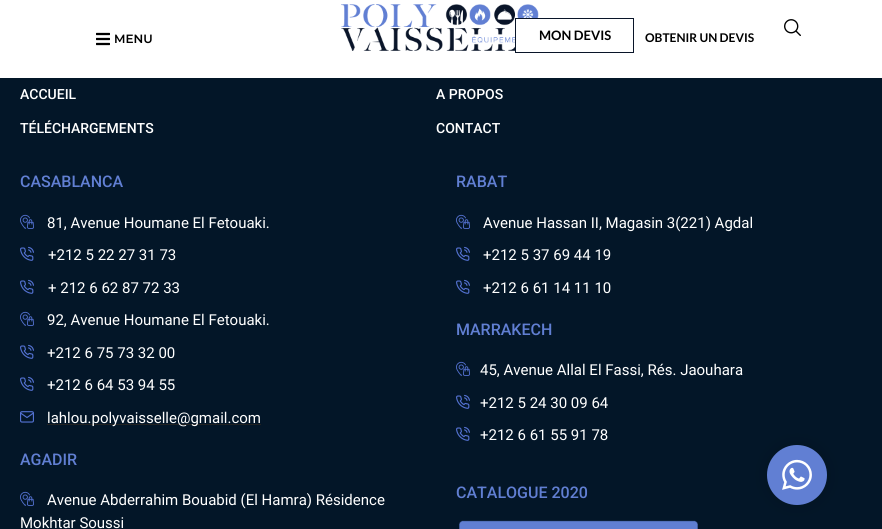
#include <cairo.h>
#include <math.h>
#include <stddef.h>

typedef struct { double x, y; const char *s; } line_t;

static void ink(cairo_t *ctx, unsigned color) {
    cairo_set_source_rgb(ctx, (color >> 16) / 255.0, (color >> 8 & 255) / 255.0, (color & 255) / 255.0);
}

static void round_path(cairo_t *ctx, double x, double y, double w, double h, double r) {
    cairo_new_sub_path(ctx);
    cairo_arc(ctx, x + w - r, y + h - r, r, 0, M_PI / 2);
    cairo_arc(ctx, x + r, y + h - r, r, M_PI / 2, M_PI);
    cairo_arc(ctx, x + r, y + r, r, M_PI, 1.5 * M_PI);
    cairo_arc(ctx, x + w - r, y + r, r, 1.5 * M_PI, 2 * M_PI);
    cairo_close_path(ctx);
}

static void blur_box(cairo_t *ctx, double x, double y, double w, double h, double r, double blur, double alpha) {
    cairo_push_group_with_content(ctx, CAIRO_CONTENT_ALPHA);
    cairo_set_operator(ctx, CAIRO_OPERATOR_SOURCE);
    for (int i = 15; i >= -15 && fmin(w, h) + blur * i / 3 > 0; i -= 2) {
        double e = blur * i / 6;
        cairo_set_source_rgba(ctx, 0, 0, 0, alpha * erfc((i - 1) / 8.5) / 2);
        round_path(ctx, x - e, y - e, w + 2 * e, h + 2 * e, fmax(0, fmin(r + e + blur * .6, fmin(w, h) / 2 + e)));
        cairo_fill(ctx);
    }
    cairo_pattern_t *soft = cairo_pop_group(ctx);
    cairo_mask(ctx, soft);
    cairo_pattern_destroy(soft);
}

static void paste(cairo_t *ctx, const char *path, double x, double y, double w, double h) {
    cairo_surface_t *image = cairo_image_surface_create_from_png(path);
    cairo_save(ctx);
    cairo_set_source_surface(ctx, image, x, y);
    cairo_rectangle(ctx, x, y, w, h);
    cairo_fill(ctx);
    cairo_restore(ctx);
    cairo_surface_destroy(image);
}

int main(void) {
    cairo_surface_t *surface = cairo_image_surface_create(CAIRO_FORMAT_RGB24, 882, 529);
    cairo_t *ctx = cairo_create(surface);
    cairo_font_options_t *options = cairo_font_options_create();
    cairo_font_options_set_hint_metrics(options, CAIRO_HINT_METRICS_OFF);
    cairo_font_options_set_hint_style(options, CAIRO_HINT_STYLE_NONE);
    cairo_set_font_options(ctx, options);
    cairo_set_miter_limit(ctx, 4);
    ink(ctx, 0x031628);
    cairo_paint(ctx);
    ink(ctx, 0xFFFFFF);
    cairo_rectangle(ctx, 0, 0, 882, 78);
    cairo_fill(ctx);
    paste(ctx, "media/1.png", 96, 32, 14, 14);
    cairo_select_font_face(ctx, "Montserrat SemiBold", CAIRO_FONT_SLANT_NORMAL, CAIRO_FONT_WEIGHT_NORMAL);
    cairo_set_font_size(ctx, 12);
    ink(ctx, 0x000000);
    cairo_move_to(ctx, 114, 43);
    cairo_show_text(ctx, "MENU");
    paste(ctx, "media/2.png", 341, 4, 198, 47);
    ink(ctx, 0xFFFFFF);
    cairo_rectangle(ctx, 516, 19, 23, 32);
    cairo_fill(ctx);
    cairo_rectangle(ctx, 515.5, 18.5, 118, 34);
    ink(ctx, 0x091529);
    cairo_set_line_width(ctx, 1);
    cairo_stroke(ctx);
    cairo_select_font_face(ctx, "Lato", CAIRO_FONT_SLANT_NORMAL, CAIRO_FONT_WEIGHT_BOLD);
    cairo_set_font_size(ctx, 13);
    ink(ctx, 0x000000);
    cairo_move_to(ctx, 539, 40);
    cairo_show_text(ctx, "MON DEVIS");
    cairo_set_font_size(ctx, 12);
    cairo_move_to(ctx, 645, 42);
    cairo_show_text(ctx, "OBTENIR UN DEVIS");
    paste(ctx, "media/3.png", 784, 19, 17, 17);
    cairo_select_font_face(ctx, "Roboto Medium", CAIRO_FONT_SLANT_NORMAL, CAIRO_FONT_WEIGHT_NORMAL);
    cairo_set_font_size(ctx, 14);
    ink(ctx, 0xFFFFFF);
    {
        static const line_t items[] = {
            {20, 99, "ACCUEIL"},
            {436, 99, "A PROPOS"},
            {20, 133, "TÉLÉCHARGEMENTS"},
            {436, 133, "CONTACT"},
        };
        for (size_t i = 0; i < sizeof items / sizeof *items; i++) {
            cairo_move_to(ctx, items[i].x, items[i].y);
            cairo_show_text(ctx, items[i].s);
        }
    }
    cairo_set_font_size(ctx, 16);
    ink(ctx, 0x617FD3);
    cairo_move_to(ctx, 20, 187);
    cairo_show_text(ctx, "CASABLANCA");
    paste(ctx, "media/4.png", 20, 214, 14, 15);
    cairo_select_font_face(ctx, "Roboto", CAIRO_FONT_SLANT_NORMAL, CAIRO_FONT_WEIGHT_NORMAL);
    cairo_set_font_size(ctx, 15);
    ink(ctx, 0xFFFFFF);
    cairo_move_to(ctx, 47, 228);
    cairo_show_text(ctx, "81, Avenue Houmane El Fetouaki.");
    paste(ctx, "media/5.png", 20, 246, 14, 15);
    cairo_move_to(ctx, 48, 260);
    cairo_show_text(ctx, "+212 5 22 27 31 73");
    paste(ctx, "media/5.png", 20, 279, 14, 15);
    cairo_move_to(ctx, 48, 293);
    cairo_show_text(ctx, "+ 212 6 62 87 72 33");
    paste(ctx, "media/4.png", 20, 311, 14, 15);
    cairo_move_to(ctx, 47, 325);
    cairo_show_text(ctx, "92, Avenue Houmane El Fetouaki.");
    paste(ctx, "media/5.png", 20, 344, 14, 15);
    cairo_move_to(ctx, 47, 358);
    cairo_show_text(ctx, "+212 6 75 73 32 00");
    paste(ctx, "media/5.png", 20, 376, 14, 15);
    cairo_move_to(ctx, 47, 390);
    cairo_show_text(ctx, "+212 6 64 53 94 55");
    paste(ctx, "media/6.png", 20, 411, 14, 12);
    ink(ctx, 0x222222);
    cairo_rectangle(ctx, 47, 424, 214, 1);
    cairo_fill(ctx);
    ink(ctx, 0xFFFFFF);
    cairo_move_to(ctx, 47, 423);
    cairo_show_text(ctx, "lahlou.polyvaisselle@gmail.com");
    cairo_select_font_face(ctx, "Roboto Medium", CAIRO_FONT_SLANT_NORMAL, CAIRO_FONT_WEIGHT_NORMAL);
    cairo_set_font_size(ctx, 16);
    ink(ctx, 0x617FD3);
    cairo_move_to(ctx, 20, 465);
    cairo_show_text(ctx, "AGADIR");
    paste(ctx, "media/4.png", 20, 491, 14, 15);
    cairo_select_font_face(ctx, "Roboto", CAIRO_FONT_SLANT_NORMAL, CAIRO_FONT_WEIGHT_NORMAL);
    cairo_set_font_size(ctx, 15);
    ink(ctx, 0xFFFFFF);
    cairo_move_to(ctx, 47, 505);
    cairo_show_text(ctx, "Avenue Abderrahim Bouabid (El Hamra) Résidence");
    cairo_move_to(ctx, 20, 528);
    cairo_show_text(ctx, "Mokhtar Soussi");
    cairo_select_font_face(ctx, "Roboto Medium", CAIRO_FONT_SLANT_NORMAL, CAIRO_FONT_WEIGHT_NORMAL);
    cairo_set_font_size(ctx, 16);
    ink(ctx, 0x617FD3);
    cairo_move_to(ctx, 456, 187);
    cairo_show_text(ctx, "RABAT");
    paste(ctx, "media/4.png", 456, 214, 14, 15);
    cairo_select_font_face(ctx, "Roboto", CAIRO_FONT_SLANT_NORMAL, CAIRO_FONT_WEIGHT_NORMAL);
    cairo_set_font_size(ctx, 15);
    ink(ctx, 0xFFFFFF);
    cairo_move_to(ctx, 483, 228);
    cairo_show_text(ctx, "Avenue Hassan II, Magasin 3(221) Agdal");
    paste(ctx, "media/5.png", 456, 246, 14, 15);
    cairo_move_to(ctx, 483, 260);
    cairo_show_text(ctx, "+212 5 37 69 44 19");
    paste(ctx, "media/5.png", 456, 279, 14, 15);
    cairo_move_to(ctx, 483, 293);
    cairo_show_text(ctx, "+212 6 61 14 11 10");
    cairo_select_font_face(ctx, "Roboto Medium", CAIRO_FONT_SLANT_NORMAL, CAIRO_FONT_WEIGHT_NORMAL);
    cairo_set_font_size(ctx, 16);
    ink(ctx, 0x617FD3);
    cairo_move_to(ctx, 456, 335);
    cairo_show_text(ctx, "MARRAKECH");
    paste(ctx, "media/4.png", 456, 361, 14, 15);
    cairo_select_font_face(ctx, "Roboto", CAIRO_FONT_SLANT_NORMAL, CAIRO_FONT_WEIGHT_NORMAL);
    cairo_set_font_size(ctx, 15);
    ink(ctx, 0xFFFFFF);
    cairo_move_to(ctx, 480, 375);
    cairo_show_text(ctx, "45, Avenue Allal El Fassi, Rés. Jaouhara");
    paste(ctx, "media/5.png", 456, 394, 14, 15);
    cairo_move_to(ctx, 480, 408);
    cairo_show_text(ctx, "+212 5 24 30 09 64");
    paste(ctx, "media/5.png", 456, 426, 14, 15);
    cairo_move_to(ctx, 480, 440);
    cairo_show_text(ctx, "+212 6 61 55 91 78");
    cairo_select_font_face(ctx, "Roboto Medium", CAIRO_FONT_SLANT_NORMAL, CAIRO_FONT_WEIGHT_NORMAL);
    cairo_set_font_size(ctx, 16);
    ink(ctx, 0x617FD3);
    cairo_move_to(ctx, 456, 498);
    cairo_show_text(ctx, "CATALOGUE 2020");
    paste(ctx, "media/7.png", 459, 520, 239, 9);
    ink(ctx, 0x000000);
    blur_box(ctx, 777, 455, 40, 40, 20, 12, 0.4);
    ink(ctx, 0x617FD3);
    cairo_arc(ctx, 797, 475, 30, 0, 2 * M_PI);
    cairo_fill(ctx);
    paste(ctx, "media/8.png", 782, 459, 30, 31);
    cairo_surface_write_to_png(surface, "image.png");
    cairo_font_options_destroy(options);
    cairo_destroy(ctx);
    cairo_surface_destroy(surface);
    return 0;
}
